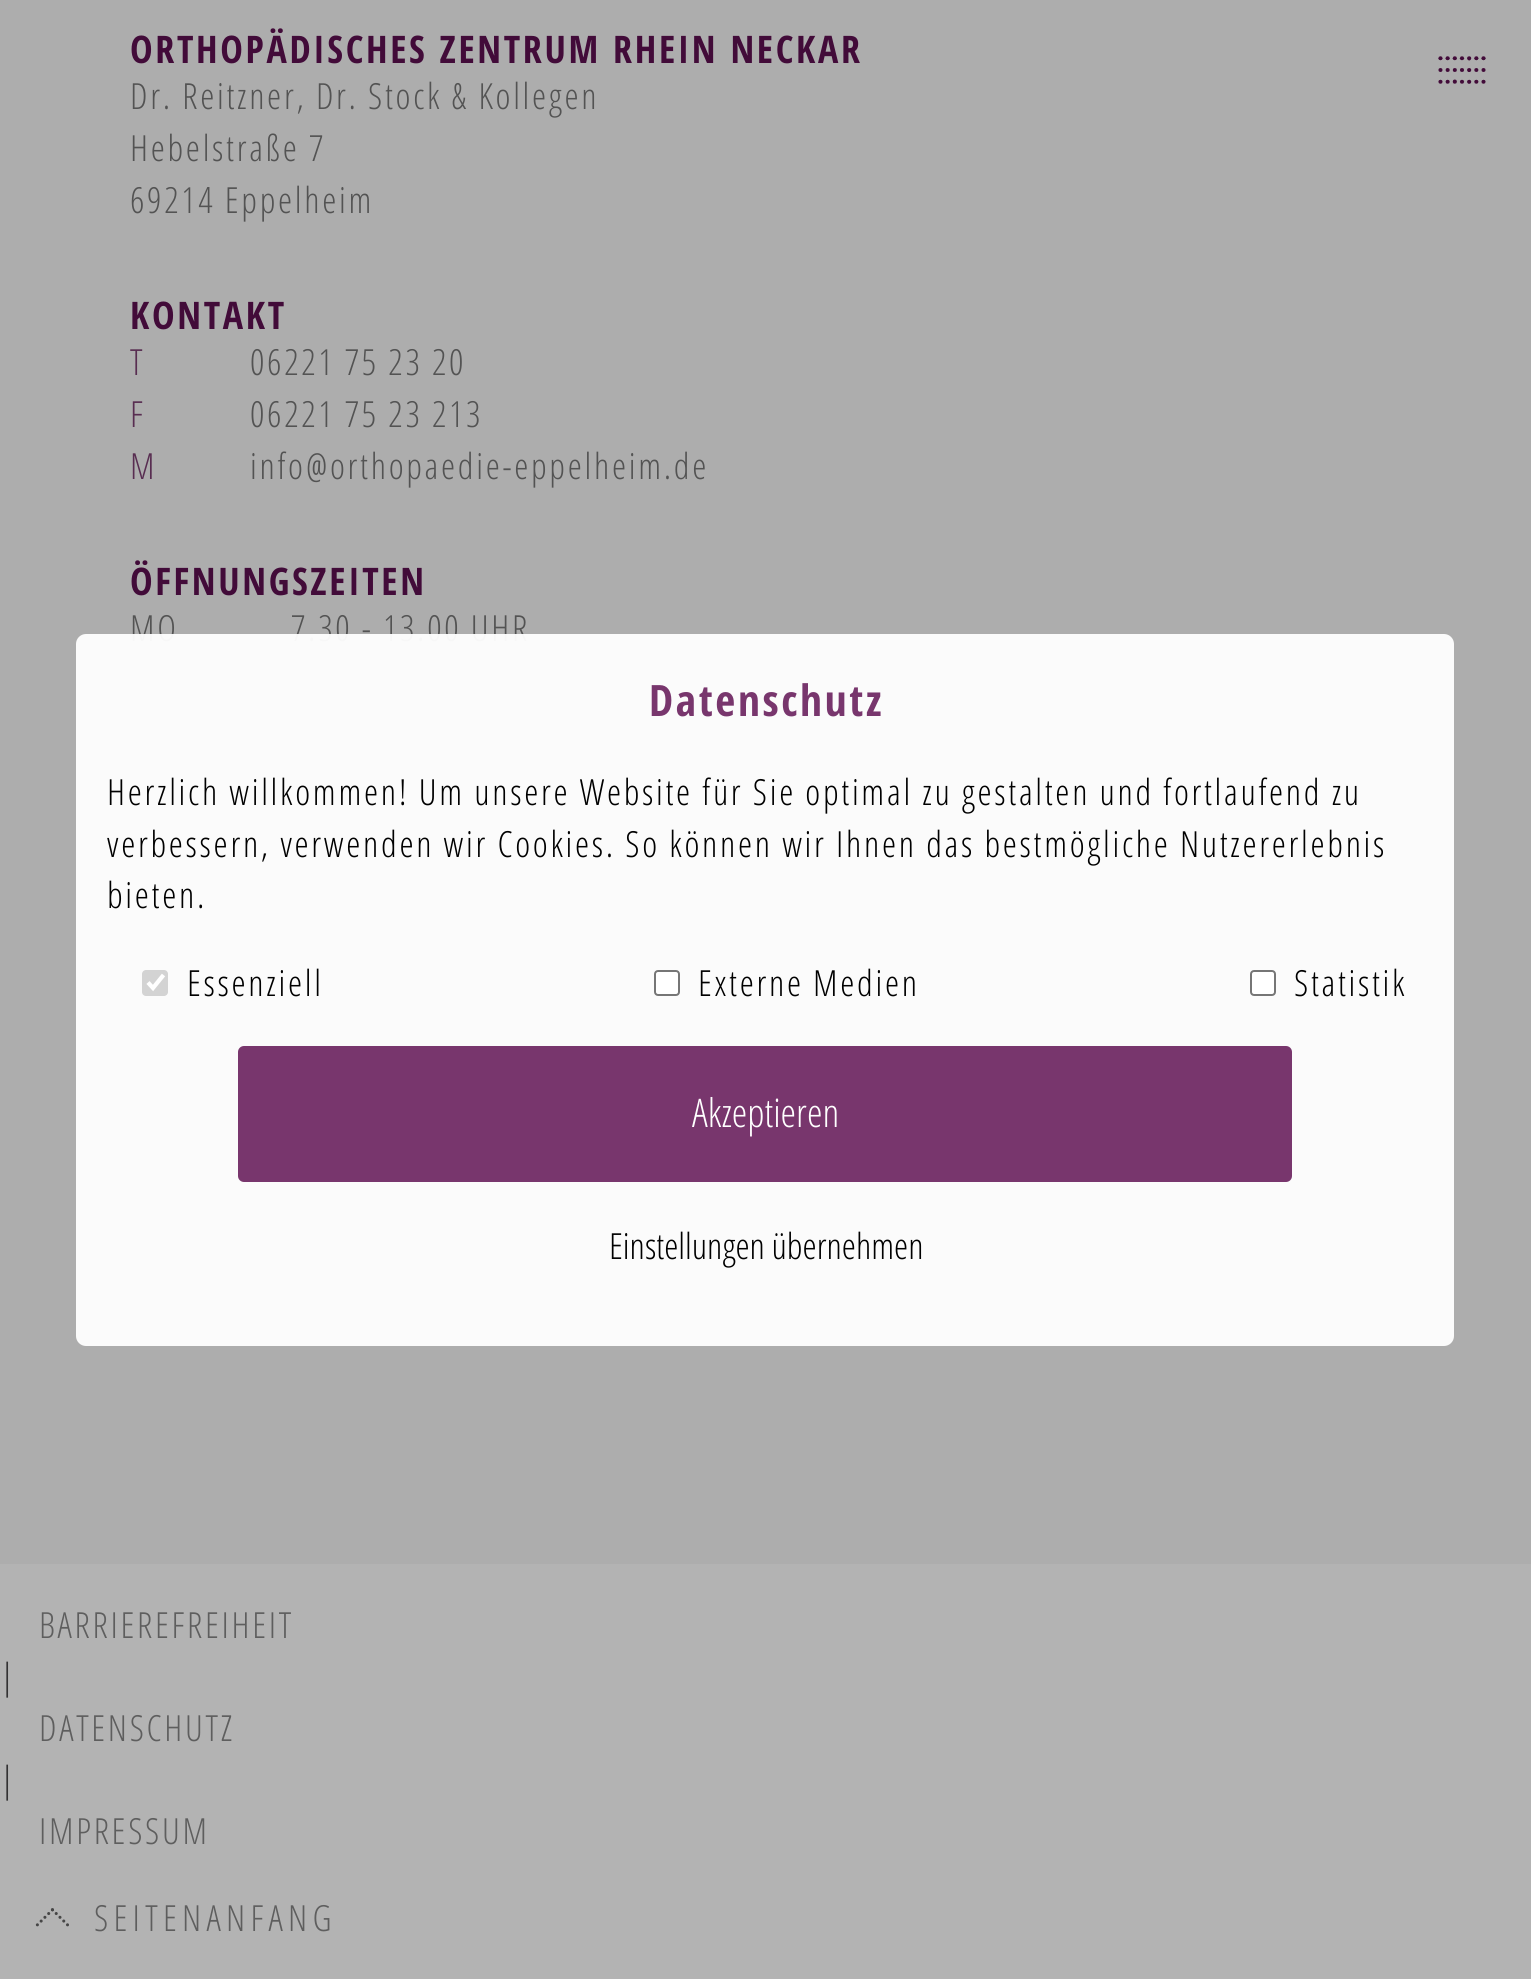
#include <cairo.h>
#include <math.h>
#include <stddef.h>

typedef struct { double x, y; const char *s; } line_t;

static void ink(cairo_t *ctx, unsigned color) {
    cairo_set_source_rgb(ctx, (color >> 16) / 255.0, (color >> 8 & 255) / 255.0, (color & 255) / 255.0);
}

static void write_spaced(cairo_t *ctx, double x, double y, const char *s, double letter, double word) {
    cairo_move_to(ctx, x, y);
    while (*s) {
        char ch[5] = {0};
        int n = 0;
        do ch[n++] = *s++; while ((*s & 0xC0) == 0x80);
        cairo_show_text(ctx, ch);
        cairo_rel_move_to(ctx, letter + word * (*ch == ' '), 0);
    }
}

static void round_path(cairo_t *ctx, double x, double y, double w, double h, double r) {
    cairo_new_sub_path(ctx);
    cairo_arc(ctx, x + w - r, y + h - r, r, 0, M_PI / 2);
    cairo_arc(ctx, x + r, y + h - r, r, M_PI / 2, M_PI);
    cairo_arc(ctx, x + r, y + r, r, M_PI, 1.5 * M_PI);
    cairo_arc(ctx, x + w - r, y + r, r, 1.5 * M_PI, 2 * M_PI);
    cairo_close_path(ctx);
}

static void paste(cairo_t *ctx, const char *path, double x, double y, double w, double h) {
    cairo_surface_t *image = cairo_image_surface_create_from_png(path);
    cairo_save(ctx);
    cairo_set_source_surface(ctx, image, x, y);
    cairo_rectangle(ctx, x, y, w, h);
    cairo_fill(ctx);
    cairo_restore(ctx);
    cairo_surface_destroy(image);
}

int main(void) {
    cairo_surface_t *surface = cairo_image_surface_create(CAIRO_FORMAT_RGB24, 1531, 1979);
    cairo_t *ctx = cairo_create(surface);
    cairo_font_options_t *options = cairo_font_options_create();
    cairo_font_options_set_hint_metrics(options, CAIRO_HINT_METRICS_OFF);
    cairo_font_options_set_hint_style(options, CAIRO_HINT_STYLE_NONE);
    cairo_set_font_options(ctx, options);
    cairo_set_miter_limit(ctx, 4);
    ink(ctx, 0xB3B3B3);
    cairo_paint(ctx);
    ink(ctx, 0xADADAD);
    cairo_rectangle(ctx, 0, 0, 1531, 1564);
    cairo_fill(ctx);
    cairo_select_font_face(ctx, "Open Sans Condensed", CAIRO_FONT_SLANT_NORMAL, CAIRO_FONT_WEIGHT_BOLD);
    cairo_set_font_size(ctx, 38);
    ink(ctx, 0x420B39);
    write_spaced(ctx, 130, 63, "ORTHOPÄDISCHES ZENTRUM RHEIN NECKAR", 2.67, 0);
    cairo_select_font_face(ctx, "Open Sans Condensed Light", CAIRO_FONT_SLANT_NORMAL, CAIRO_FONT_WEIGHT_NORMAL);
    cairo_set_font_size(ctx, 36);
    ink(ctx, 0x535353);
    {
        static const line_t items[] = {
            {130, 109, "Dr. Reitzner, Dr. Stock & Kollegen"},
            {130, 161, "Hebelstraße 7"},
            {130, 213, "69214 Eppelheim"},
        };
        for (size_t i = 0; i < sizeof items / sizeof *items; i++) {
            write_spaced(ctx, items[i].x, items[i].y, items[i].s, 2.67, 0);
        }
    }
    cairo_select_font_face(ctx, "Open Sans Condensed", CAIRO_FONT_SLANT_NORMAL, CAIRO_FONT_WEIGHT_BOLD);
    cairo_set_font_size(ctx, 38);
    ink(ctx, 0x420B39);
    write_spaced(ctx, 130, 329, "KONTAKT", 2.67, 0);
    cairo_select_font_face(ctx, "Open Sans Condensed Light", CAIRO_FONT_SLANT_NORMAL, CAIRO_FONT_WEIGHT_NORMAL);
    cairo_set_font_size(ctx, 36);
    ink(ctx, 0x582D51);
    write_spaced(ctx, 130, 375, "T", 2.67, 0);
    ink(ctx, 0x535353);
    write_spaced(ctx, 250, 375, "06221 75 23 20", 2.67, 0);
    ink(ctx, 0x582D51);
    write_spaced(ctx, 130, 427, "F", 2.67, 0);
    ink(ctx, 0x535353);
    write_spaced(ctx, 250, 427, "06221 75 23 213", 2.67, 0);
    ink(ctx, 0x582D51);
    write_spaced(ctx, 130, 479, "M", 2.67, 0);
    ink(ctx, 0x535353);
    write_spaced(ctx, 250, 479, "info@orthopaedie-eppelheim.de", 2.67, 0);
    cairo_select_font_face(ctx, "Open Sans Condensed", CAIRO_FONT_SLANT_NORMAL, CAIRO_FONT_WEIGHT_BOLD);
    cairo_set_font_size(ctx, 38);
    ink(ctx, 0x420B39);
    write_spaced(ctx, 130, 595, "ÖFFNUNGSZEITEN", 2.67, 0);
    cairo_select_font_face(ctx, "Open Sans Condensed Light", CAIRO_FONT_SLANT_NORMAL, CAIRO_FONT_WEIGHT_NORMAL);
    cairo_set_font_size(ctx, 36);
    ink(ctx, 0x535353);
    write_spaced(ctx, 130, 641, "MO", 2.67, 0);
    write_spaced(ctx, 291, 641, "7.30 - 13.00 UHR", 2.67, 0);
    ink(ctx, 0x5E5E5E);
    write_spaced(ctx, 39, 1638, "BARRIEREFREIHEIT", 2.67, 0);
    ink(ctx, 0x333233);
    write_spaced(ctx, 0, 1689, "|", 2.67, 0);
    ink(ctx, 0x5E5E5E);
    write_spaced(ctx, 39, 1741, "DATENSCHUTZ", 2.67, 0);
    ink(ctx, 0x333233);
    write_spaced(ctx, 0, 1792, "|", 2.67, 0);
    ink(ctx, 0x5E5E5E);
    write_spaced(ctx, 39, 1844, "IMPRESSUM", 2.67, 0);
    paste(ctx, "media/1.png", 35, 1908, 34, 19);
    write_spaced(ctx, 94, 1931, "SEITENANFANG", 5.25, 0);
    paste(ctx, "media/2.png", 1438, 56, 48, 28);
    cairo_set_source_rgba(ctx, 1, 1, 1, 0.95);
    round_path(ctx, 76, 634, 1378, 712, 10);
    cairo_fill(ctx);
    cairo_select_font_face(ctx, "Open Sans Condensed", CAIRO_FONT_SLANT_NORMAL, CAIRO_FONT_WEIGHT_BOLD);
    cairo_set_font_size(ctx, 43.25);
    ink(ctx, 0x78366D);
    write_spaced(ctx, 649, 716, "Datenschutz", 2.67, 0);
    cairo_select_font_face(ctx, "Open Sans Condensed Light", CAIRO_FONT_SLANT_NORMAL, CAIRO_FONT_WEIGHT_NORMAL);
    cairo_set_font_size(ctx, 36);
    ink(ctx, 0x000000);
    {
        static const line_t items[] = {
            {107, 805, "Herzlich willkommen! Um unsere Website für Sie optimal zu gestalten und fortlaufend zu"},
            {107, 857, "verbessern, verwenden wir Cookies. So können wir Ihnen das bestmögliche Nutzererlebnis"},
            {107, 908, "bieten."},
        };
        for (size_t i = 0; i < sizeof items / sizeof *items; i++) {
            write_spaced(ctx, items[i].x, items[i].y, items[i].s, 2.67, 0);
        }
    }
    cairo_set_source_rgba(ctx, 0.463, 0.463, 0.463, 0.3);
    round_path(ctx, 142, 970, 26, 26, 4);
    cairo_fill(ctx);
    cairo_new_path(ctx);
    cairo_move_to(ctx, 148, 982.5);
    cairo_line_to(ctx, 153, 988);
    cairo_line_to(ctx, 163.5, 975);
    ink(ctx, 0xFFFFFF);
    cairo_set_line_width(ctx, 4.2);
    cairo_stroke(ctx);
    ink(ctx, 0x000000);
    write_spaced(ctx, 187, 996, "Essenziell", 2.67, 0);
    ink(ctx, 0xFFFFFF);
    round_path(ctx, 655, 971, 24, 24, 3);
    cairo_fill_preserve(ctx);
    ink(ctx, 0x767676);
    cairo_set_line_width(ctx, 2);
    cairo_stroke(ctx);
    ink(ctx, 0x000000);
    write_spaced(ctx, 698, 996, "Externe Medien", 2.67, 0);
    ink(ctx, 0xFFFFFF);
    round_path(ctx, 1251, 971, 24, 24, 3);
    cairo_fill_preserve(ctx);
    ink(ctx, 0x767676);
    cairo_stroke(ctx);
    ink(ctx, 0x000000);
    write_spaced(ctx, 1294, 996, "Statistik", 2.67, 0);
    ink(ctx, 0x78366D);
    round_path(ctx, 238, 1046, 1054, 136, 6);
    cairo_fill(ctx);
    cairo_set_font_size(ctx, 39.5);
    ink(ctx, 0xFFFFFF);
    cairo_move_to(ctx, 692, 1127);
    cairo_show_text(ctx, "Akzeptieren");
    cairo_set_font_size(ctx, 36);
    ink(ctx, 0x000000);
    cairo_move_to(ctx, 609, 1259);
    cairo_show_text(ctx, "Einstellungen übernehmen");
    cairo_surface_write_to_png(surface, "image.png");
    cairo_font_options_destroy(options);
    cairo_destroy(ctx);
    cairo_surface_destroy(surface);
    return 0;
}
